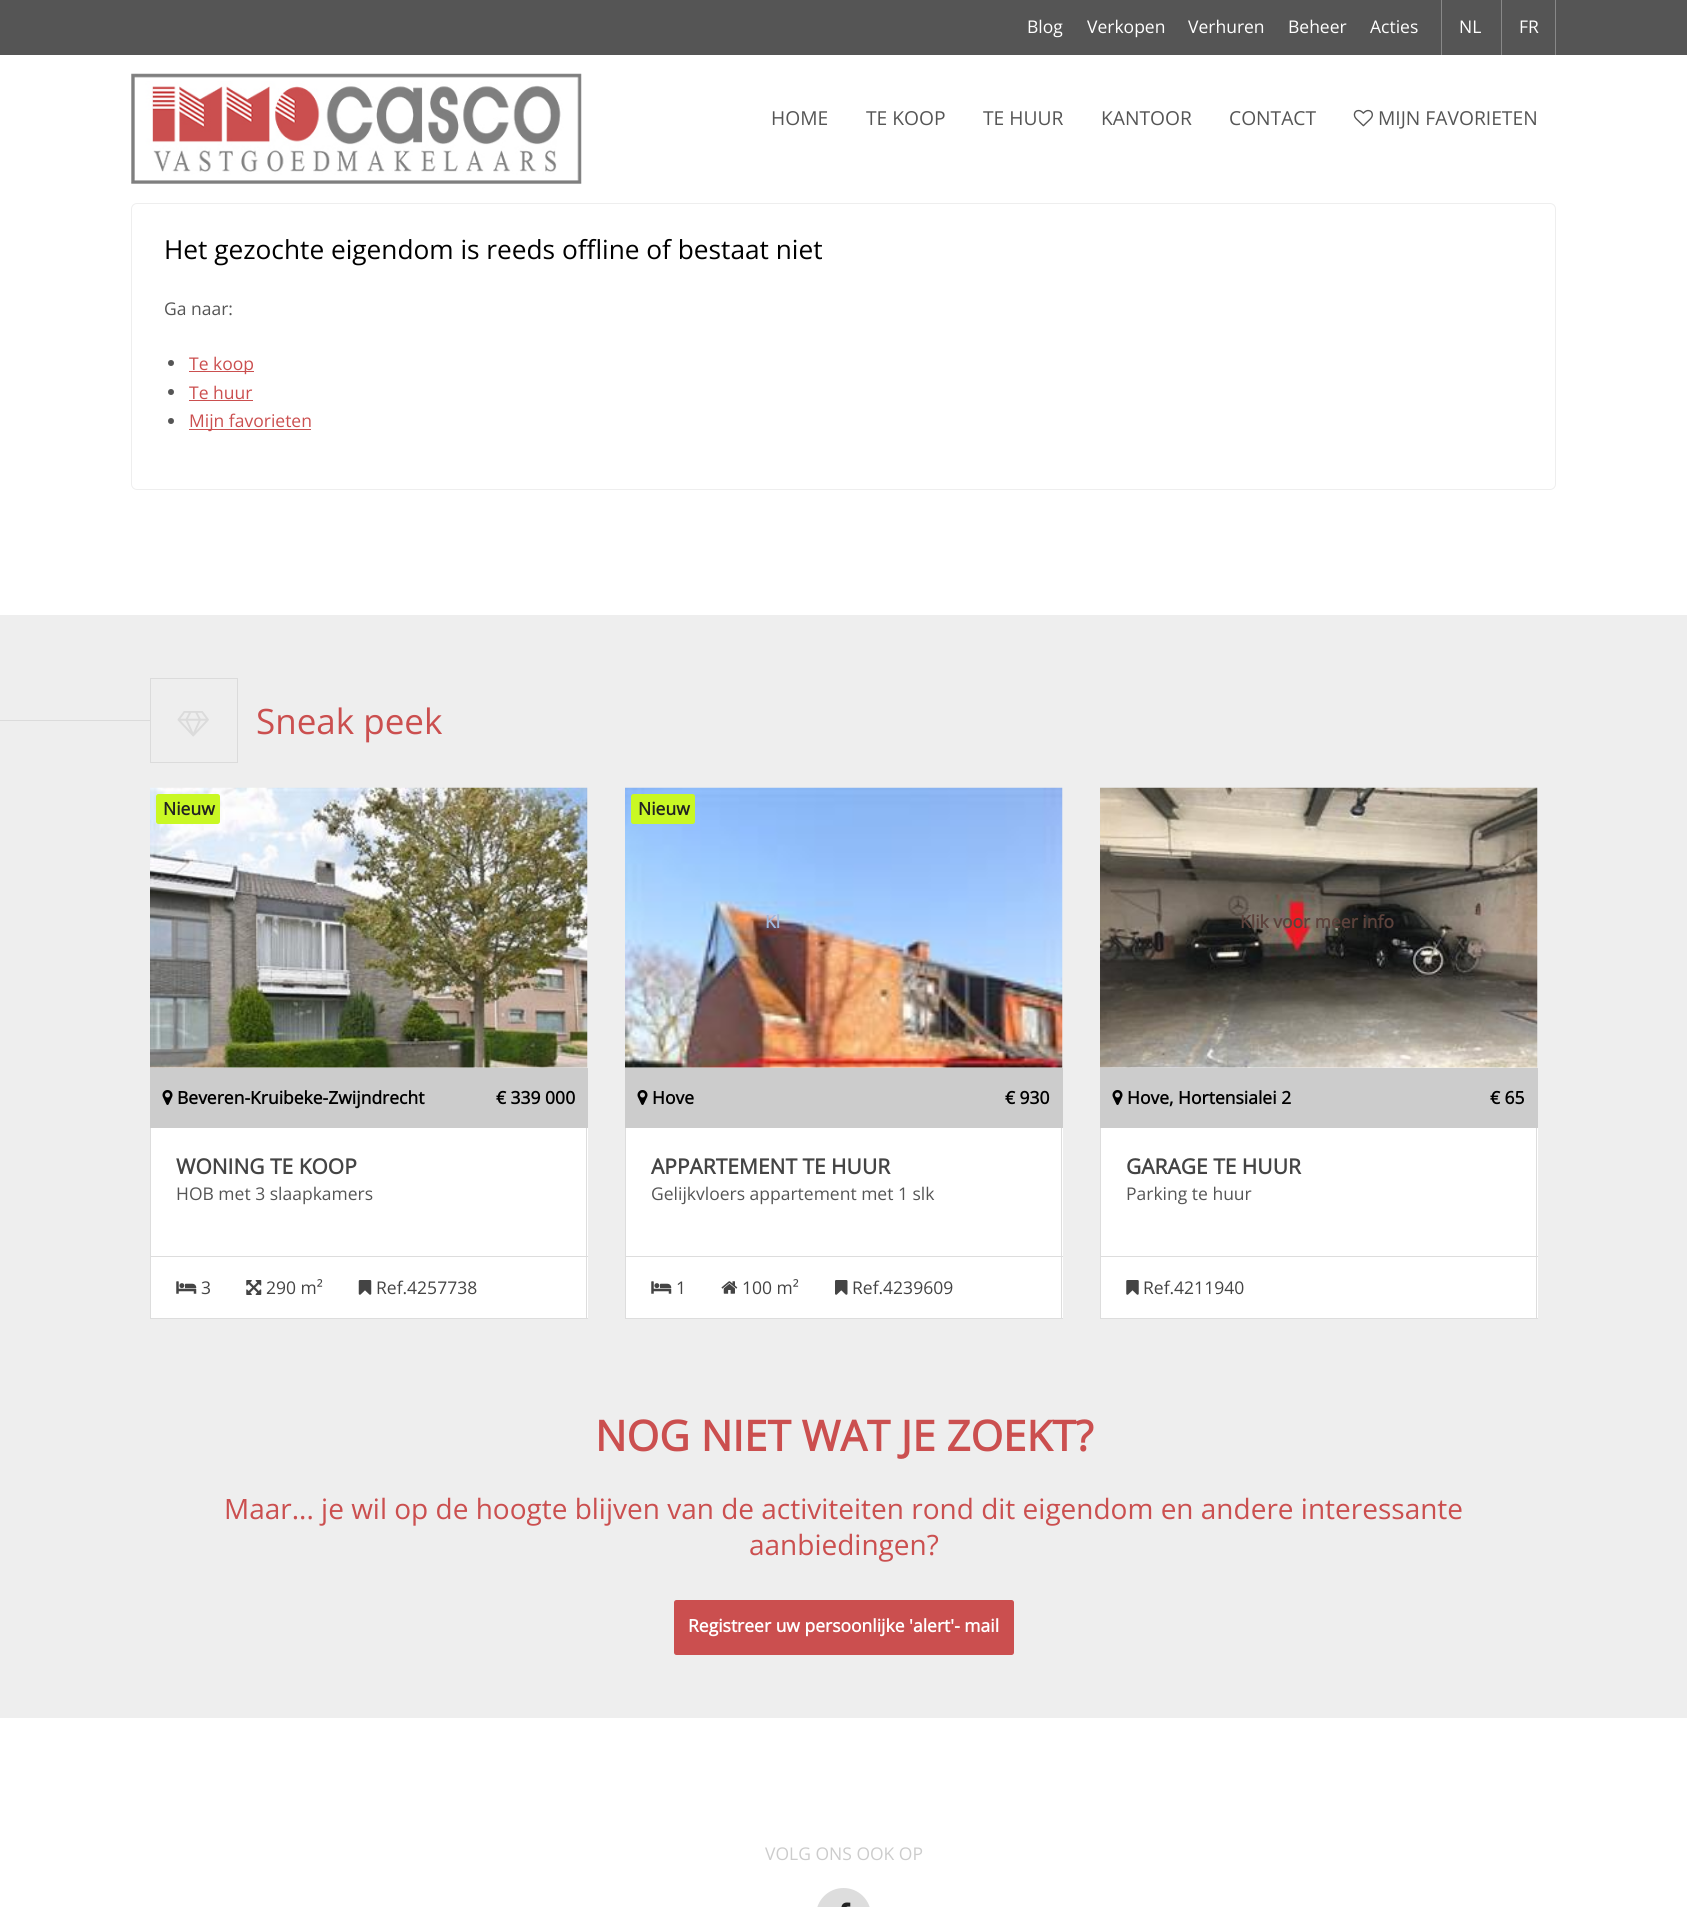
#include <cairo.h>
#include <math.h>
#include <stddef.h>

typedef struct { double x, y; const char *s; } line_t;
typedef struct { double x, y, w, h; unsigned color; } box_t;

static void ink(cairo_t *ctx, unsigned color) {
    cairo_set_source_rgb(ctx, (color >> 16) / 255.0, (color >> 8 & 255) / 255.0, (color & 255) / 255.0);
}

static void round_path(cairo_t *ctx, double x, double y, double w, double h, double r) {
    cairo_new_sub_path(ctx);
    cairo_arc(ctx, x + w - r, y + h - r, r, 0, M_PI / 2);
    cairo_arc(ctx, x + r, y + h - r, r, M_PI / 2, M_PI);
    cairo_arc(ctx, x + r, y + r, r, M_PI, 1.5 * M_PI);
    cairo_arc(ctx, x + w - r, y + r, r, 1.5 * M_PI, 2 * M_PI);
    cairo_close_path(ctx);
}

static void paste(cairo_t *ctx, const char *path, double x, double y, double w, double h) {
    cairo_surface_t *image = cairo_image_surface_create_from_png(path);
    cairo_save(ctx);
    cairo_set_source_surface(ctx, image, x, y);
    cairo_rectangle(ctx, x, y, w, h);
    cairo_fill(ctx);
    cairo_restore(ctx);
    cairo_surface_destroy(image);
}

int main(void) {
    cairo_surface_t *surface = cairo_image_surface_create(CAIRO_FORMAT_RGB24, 1687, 1907);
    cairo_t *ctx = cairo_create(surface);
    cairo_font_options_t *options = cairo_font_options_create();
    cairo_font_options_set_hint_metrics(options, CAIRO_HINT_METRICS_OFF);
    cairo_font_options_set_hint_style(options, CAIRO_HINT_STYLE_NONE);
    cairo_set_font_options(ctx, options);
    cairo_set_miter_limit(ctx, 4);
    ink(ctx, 0xFFFFFF);
    cairo_paint(ctx);
    ink(ctx, 0x555555);
    cairo_rectangle(ctx, 0, 0, 1687, 55);
    cairo_fill(ctx);
    cairo_select_font_face(ctx, "Open Sans", CAIRO_FONT_SLANT_NORMAL, CAIRO_FONT_WEIGHT_NORMAL);
    cairo_set_font_size(ctx, 17.5);
    ink(ctx, 0xFFFFFF);
    {
        static const line_t items[] = {
            {1027, 33, "Blog"},
            {1087, 33, "Verkopen"},
            {1188, 33, "Verhuren"},
            {1288, 33, "Beheer"},
            {1370, 33, "Acties"},
        };
        for (size_t i = 0; i < sizeof items / sizeof *items; i++) {
            cairo_move_to(ctx, items[i].x, items[i].y);
            cairo_show_text(ctx, items[i].s);
        }
    }
    ink(ctx, 0x888888);
    cairo_rectangle(ctx, 1441, 0, 1, 55);
    cairo_fill(ctx);
    ink(ctx, 0xFFFFFF);
    cairo_move_to(ctx, 1459, 33);
    cairo_show_text(ctx, "NL");
    ink(ctx, 0x888888);
    cairo_rectangle(ctx, 1555, 0, 1, 55);
    cairo_fill(ctx);
    cairo_rectangle(ctx, 1501, 0, 1, 55);
    cairo_fill(ctx);
    ink(ctx, 0xFFFFFF);
    cairo_move_to(ctx, 1519, 33);
    cairo_show_text(ctx, "FR");
    paste(ctx, "media/1.png", 131, 73, 451, 111);
    cairo_set_font_size(ctx, 19.25);
    ink(ctx, 0x555555);
    {
        static const line_t items[] = {
            {771, 125, "HOME"},
            {866, 125, "TE KOOP"},
            {983, 125, "TE HUUR"},
            {1101, 125, "KANTOOR"},
            {1229, 125, "CONTACT"},
        };
        for (size_t i = 0; i < sizeof items / sizeof *items; i++) {
            cairo_move_to(ctx, items[i].x, items[i].y);
            cairo_show_text(ctx, items[i].s);
        }
    }
    paste(ctx, "media/2.png", 1353, 109, 20, 18);
    cairo_move_to(ctx, 1378, 125);
    cairo_show_text(ctx, "MIJN FAVORIETEN");
    round_path(ctx, 131.5, 203.5, 1424, 286, 5.5);
    ink(ctx, 0xEEEEEE);
    cairo_set_line_width(ctx, 1);
    cairo_stroke(ctx);
    cairo_set_font_size(ctx, 26.25);
    ink(ctx, 0x000000);
    cairo_move_to(ctx, 164, 259);
    cairo_show_text(ctx, "Het gezochte eigendom is reeds offline of bestaat niet");
    cairo_set_font_size(ctx, 17.5);
    ink(ctx, 0x555555);
    cairo_move_to(ctx, 164, 315);
    cairo_show_text(ctx, "Ga naar:");
    cairo_new_path(ctx);
    cairo_arc(ctx, 171, 363, 3, 0, 2 * M_PI);
    cairo_fill(ctx);
    ink(ctx, 0xCB4F4F);
    cairo_rectangle(ctx, 189, 371, 65, 1);
    cairo_fill(ctx);
    cairo_move_to(ctx, 189, 370);
    cairo_show_text(ctx, "Te koop");
    ink(ctx, 0x555555);
    cairo_new_path(ctx);
    cairo_arc(ctx, 171, 392, 3, 0, 2 * M_PI);
    cairo_fill(ctx);
    ink(ctx, 0xCB4F4F);
    cairo_move_to(ctx, 189, 399);
    cairo_show_text(ctx, "Te huur");
    cairo_rectangle(ctx, 189, 400, 64, 1);
    cairo_fill(ctx);
    ink(ctx, 0x555555);
    cairo_arc(ctx, 171, 421, 3, 0, 2 * M_PI);
    cairo_fill(ctx);
    ink(ctx, 0xCB4F4F);
    cairo_rectangle(ctx, 189, 429, 122, 1);
    cairo_fill(ctx);
    cairo_move_to(ctx, 189, 427);
    cairo_show_text(ctx, "Mijn favorieten");
    ink(ctx, 0xEEEEEE);
    cairo_rectangle(ctx, 0, 615, 1687, 1103);
    cairo_fill(ctx);
    cairo_rectangle(ctx, 150.5, 678.5, 87, 84);
    ink(ctx, 0xDBDBDB);
    cairo_stroke(ctx);
    cairo_rectangle(ctx, 0, 720, 151, 1);
    cairo_fill(ctx);
    paste(ctx, "media/3.png", 177, 711, 32, 26);
    cairo_set_font_size(ctx, 35);
    ink(ctx, 0xCB4F4F);
    cairo_move_to(ctx, 256, 734);
    cairo_show_text(ctx, "Sneak peek");
    paste(ctx, "media/4.png", 150, 787, 438, 281);
    ink(ctx, 0xC9F824);
    round_path(ctx, 156, 794, 64, 30, 2.5);
    cairo_fill(ctx);
    cairo_select_font_face(ctx, "Open Sans", CAIRO_FONT_SLANT_NORMAL, CAIRO_FONT_WEIGHT_BOLD);
    cairo_set_font_size(ctx, 17.5);
    ink(ctx, 0x222222);
    cairo_move_to(ctx, 163, 815);
    cairo_show_text(ctx, "Nieuw");
    ink(ctx, 0xCCCCCC);
    cairo_rectangle(ctx, 150, 1068, 438, 60);
    cairo_fill(ctx);
    paste(ctx, "media/5.png", 162, 1090, 11, 15);
    ink(ctx, 0x000000);
    cairo_move_to(ctx, 177, 1104);
    cairo_show_text(ctx, "Beveren-Kruibeke-Zwijndrecht");
    cairo_move_to(ctx, 496, 1104);
    cairo_show_text(ctx, "€ 339 000");
    {
        static const box_t items[] = {
            {151, 1128, 437, 190, 0xFFFFFF},
            {586, 1128, 1, 191, 0xDDDDDD},
            {150, 1256, 438, 1, 0xDDDDDD},
            {150, 1128, 1, 130, 0xDDDDDD},
        };
        for (size_t i = 0; i < sizeof items / sizeof *items; i++) {
            ink(ctx, items[i].color);
            cairo_rectangle(ctx, items[i].x, items[i].y, items[i].w, items[i].h);
            cairo_fill(ctx);
        }
    }
    cairo_set_font_size(ctx, 21);
    ink(ctx, 0x444444);
    cairo_move_to(ctx, 176, 1174);
    cairo_show_text(ctx, "WONING TE KOOP");
    cairo_select_font_face(ctx, "Open Sans", CAIRO_FONT_SLANT_NORMAL, CAIRO_FONT_WEIGHT_NORMAL);
    cairo_set_font_size(ctx, 17.5);
    ink(ctx, 0x555555);
    cairo_move_to(ctx, 176, 1200);
    cairo_show_text(ctx, "HOB met 3 slaapkamers");
    ink(ctx, 0xDDDDDD);
    cairo_rectangle(ctx, 150, 1318, 438, 1);
    cairo_fill(ctx);
    cairo_rectangle(ctx, 150, 1258, 1, 61);
    cairo_fill(ctx);
    paste(ctx, "media/6.png", 176, 1281, 21, 13);
    ink(ctx, 0x444444);
    cairo_move_to(ctx, 201, 1294);
    cairo_show_text(ctx, "3");
    paste(ctx, "media/7.png", 246, 1280, 16, 15);
    cairo_move_to(ctx, 266, 1294);
    cairo_show_text(ctx, "290 m²");
    paste(ctx, "media/8.png", 358, 1280, 14, 15);
    cairo_move_to(ctx, 376, 1294);
    cairo_show_text(ctx, "Ref.4257738");
    paste(ctx, "media/9.png", 625, 787, 438, 281);
    ink(ctx, 0xC9F824);
    round_path(ctx, 631, 794, 64, 30, 2.5);
    cairo_fill(ctx);
    cairo_select_font_face(ctx, "Open Sans", CAIRO_FONT_SLANT_NORMAL, CAIRO_FONT_WEIGHT_BOLD);
    ink(ctx, 0x222222);
    cairo_move_to(ctx, 638, 815);
    cairo_show_text(ctx, "Nieuw");
    ink(ctx, 0xA0B8DE);
    cairo_move_to(ctx, 765, 928);
    cairo_show_text(ctx, "Kl");
    ink(ctx, 0xCCCCCC);
    cairo_rectangle(ctx, 625, 1068, 438, 60);
    cairo_fill(ctx);
    paste(ctx, "media/5.png", 637, 1090, 11, 15);
    ink(ctx, 0x000000);
    cairo_move_to(ctx, 652, 1104);
    cairo_show_text(ctx, "Hove");
    cairo_move_to(ctx, 1005, 1104);
    cairo_show_text(ctx, "€ 930");
    {
        static const box_t items[] = {
            {626, 1128, 437, 190, 0xFFFFFF},
            {1061, 1128, 1, 191, 0xDDDDDD},
            {625, 1256, 438, 1, 0xDDDDDD},
            {625, 1128, 1, 130, 0xDDDDDD},
        };
        for (size_t i = 0; i < sizeof items / sizeof *items; i++) {
            ink(ctx, items[i].color);
            cairo_rectangle(ctx, items[i].x, items[i].y, items[i].w, items[i].h);
            cairo_fill(ctx);
        }
    }
    cairo_set_font_size(ctx, 21);
    ink(ctx, 0x444444);
    cairo_move_to(ctx, 651, 1174);
    cairo_show_text(ctx, "APPARTEMENT TE HUUR");
    cairo_select_font_face(ctx, "Open Sans", CAIRO_FONT_SLANT_NORMAL, CAIRO_FONT_WEIGHT_NORMAL);
    cairo_set_font_size(ctx, 17.5);
    ink(ctx, 0x555555);
    cairo_move_to(ctx, 651, 1200);
    cairo_show_text(ctx, "Gelijkvloers appartement met 1 slk");
    ink(ctx, 0xDDDDDD);
    cairo_rectangle(ctx, 625, 1318, 438, 1);
    cairo_fill(ctx);
    cairo_rectangle(ctx, 625, 1258, 1, 61);
    cairo_fill(ctx);
    paste(ctx, "media/6.png", 651, 1281, 21, 13);
    ink(ctx, 0x444444);
    cairo_move_to(ctx, 676, 1294);
    cairo_show_text(ctx, "1");
    paste(ctx, "media/10.png", 721, 1281, 17, 13);
    cairo_move_to(ctx, 742, 1294);
    cairo_show_text(ctx, "100 m²");
    paste(ctx, "media/11.png", 835, 1280, 13, 15);
    cairo_move_to(ctx, 852, 1294);
    cairo_show_text(ctx, "Ref.4239609");
    paste(ctx, "media/12.png", 1100, 787, 438, 281);
    cairo_select_font_face(ctx, "Open Sans", CAIRO_FONT_SLANT_NORMAL, CAIRO_FONT_WEIGHT_BOLD);
    ink(ctx, 0x5C423C);
    cairo_move_to(ctx, 1240, 928);
    cairo_show_text(ctx, "Klik voor meer info");
    ink(ctx, 0xCCCCCC);
    cairo_rectangle(ctx, 1100, 1068, 438, 60);
    cairo_fill(ctx);
    paste(ctx, "media/5.png", 1112, 1090, 11, 15);
    ink(ctx, 0x000000);
    cairo_move_to(ctx, 1127, 1104);
    cairo_show_text(ctx, "Hove, Hortensialei 2");
    cairo_move_to(ctx, 1490, 1104);
    cairo_show_text(ctx, "€ 65");
    {
        static const box_t items[] = {
            {1101, 1128, 437, 190, 0xFFFFFF},
            {1536, 1128, 1, 191, 0xDDDDDD},
            {1100, 1256, 438, 1, 0xDDDDDD},
            {1100, 1128, 1, 130, 0xDDDDDD},
        };
        for (size_t i = 0; i < sizeof items / sizeof *items; i++) {
            ink(ctx, items[i].color);
            cairo_rectangle(ctx, items[i].x, items[i].y, items[i].w, items[i].h);
            cairo_fill(ctx);
        }
    }
    cairo_set_font_size(ctx, 21);
    ink(ctx, 0x444444);
    cairo_move_to(ctx, 1126, 1174);
    cairo_show_text(ctx, "GARAGE TE HUUR");
    cairo_select_font_face(ctx, "Open Sans", CAIRO_FONT_SLANT_NORMAL, CAIRO_FONT_WEIGHT_NORMAL);
    cairo_set_font_size(ctx, 17.5);
    ink(ctx, 0x555555);
    cairo_move_to(ctx, 1126, 1200);
    cairo_show_text(ctx, "Parking te huur");
    ink(ctx, 0xDDDDDD);
    cairo_rectangle(ctx, 1100, 1318, 438, 1);
    cairo_fill(ctx);
    cairo_rectangle(ctx, 1100, 1258, 1, 61);
    cairo_fill(ctx);
    paste(ctx, "media/13.png", 1126, 1280, 13, 15);
    ink(ctx, 0x444444);
    cairo_move_to(ctx, 1143, 1294);
    cairo_show_text(ctx, "Ref.4211940");
    cairo_select_font_face(ctx, "Open Sans", CAIRO_FONT_SLANT_NORMAL, CAIRO_FONT_WEIGHT_BOLD);
    cairo_set_font_size(ctx, 42);
    ink(ctx, 0xCB4F4F);
    cairo_move_to(ctx, 595, 1451);
    cairo_show_text(ctx, "NOG NIET WAT JE ZOEKT?");
    cairo_select_font_face(ctx, "Open Sans", CAIRO_FONT_SLANT_NORMAL, CAIRO_FONT_WEIGHT_NORMAL);
    cairo_set_font_size(ctx, 28);
    cairo_move_to(ctx, 224, 1519);
    cairo_show_text(ctx, "Maar... je wil op de hoogte blijven van de activiteiten rond dit eigendom en andere interessante");
    cairo_move_to(ctx, 749, 1555);
    cairo_show_text(ctx, "aanbiedingen?");
    round_path(ctx, 674, 1600, 340, 55, 2.5);
    cairo_fill(ctx);
    cairo_select_font_face(ctx, "Open Sans", CAIRO_FONT_SLANT_NORMAL, CAIRO_FONT_WEIGHT_BOLD);
    cairo_set_font_size(ctx, 17.5);
    ink(ctx, 0xFFFFFF);
    cairo_move_to(ctx, 688, 1632);
    cairo_show_text(ctx, "Registreer uw persoonlijke 'alert'- mail");
    cairo_select_font_face(ctx, "Open Sans", CAIRO_FONT_SLANT_NORMAL, CAIRO_FONT_WEIGHT_NORMAL);
    ink(ctx, 0xCCCCCC);
    cairo_move_to(ctx, 765, 1860);
    cairo_show_text(ctx, "VOLG ONS OOK OP");
    ink(ctx, 0xDDDDDD);
    round_path(ctx, 816, 1888, 55, 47, 27.5);
    cairo_fill(ctx);
    paste(ctx, "media/14.png", 841, 1902, 10, 5);
    cairo_surface_write_to_png(surface, "image.png");
    cairo_font_options_destroy(options);
    cairo_destroy(ctx);
    cairo_surface_destroy(surface);
    return 0;
}
